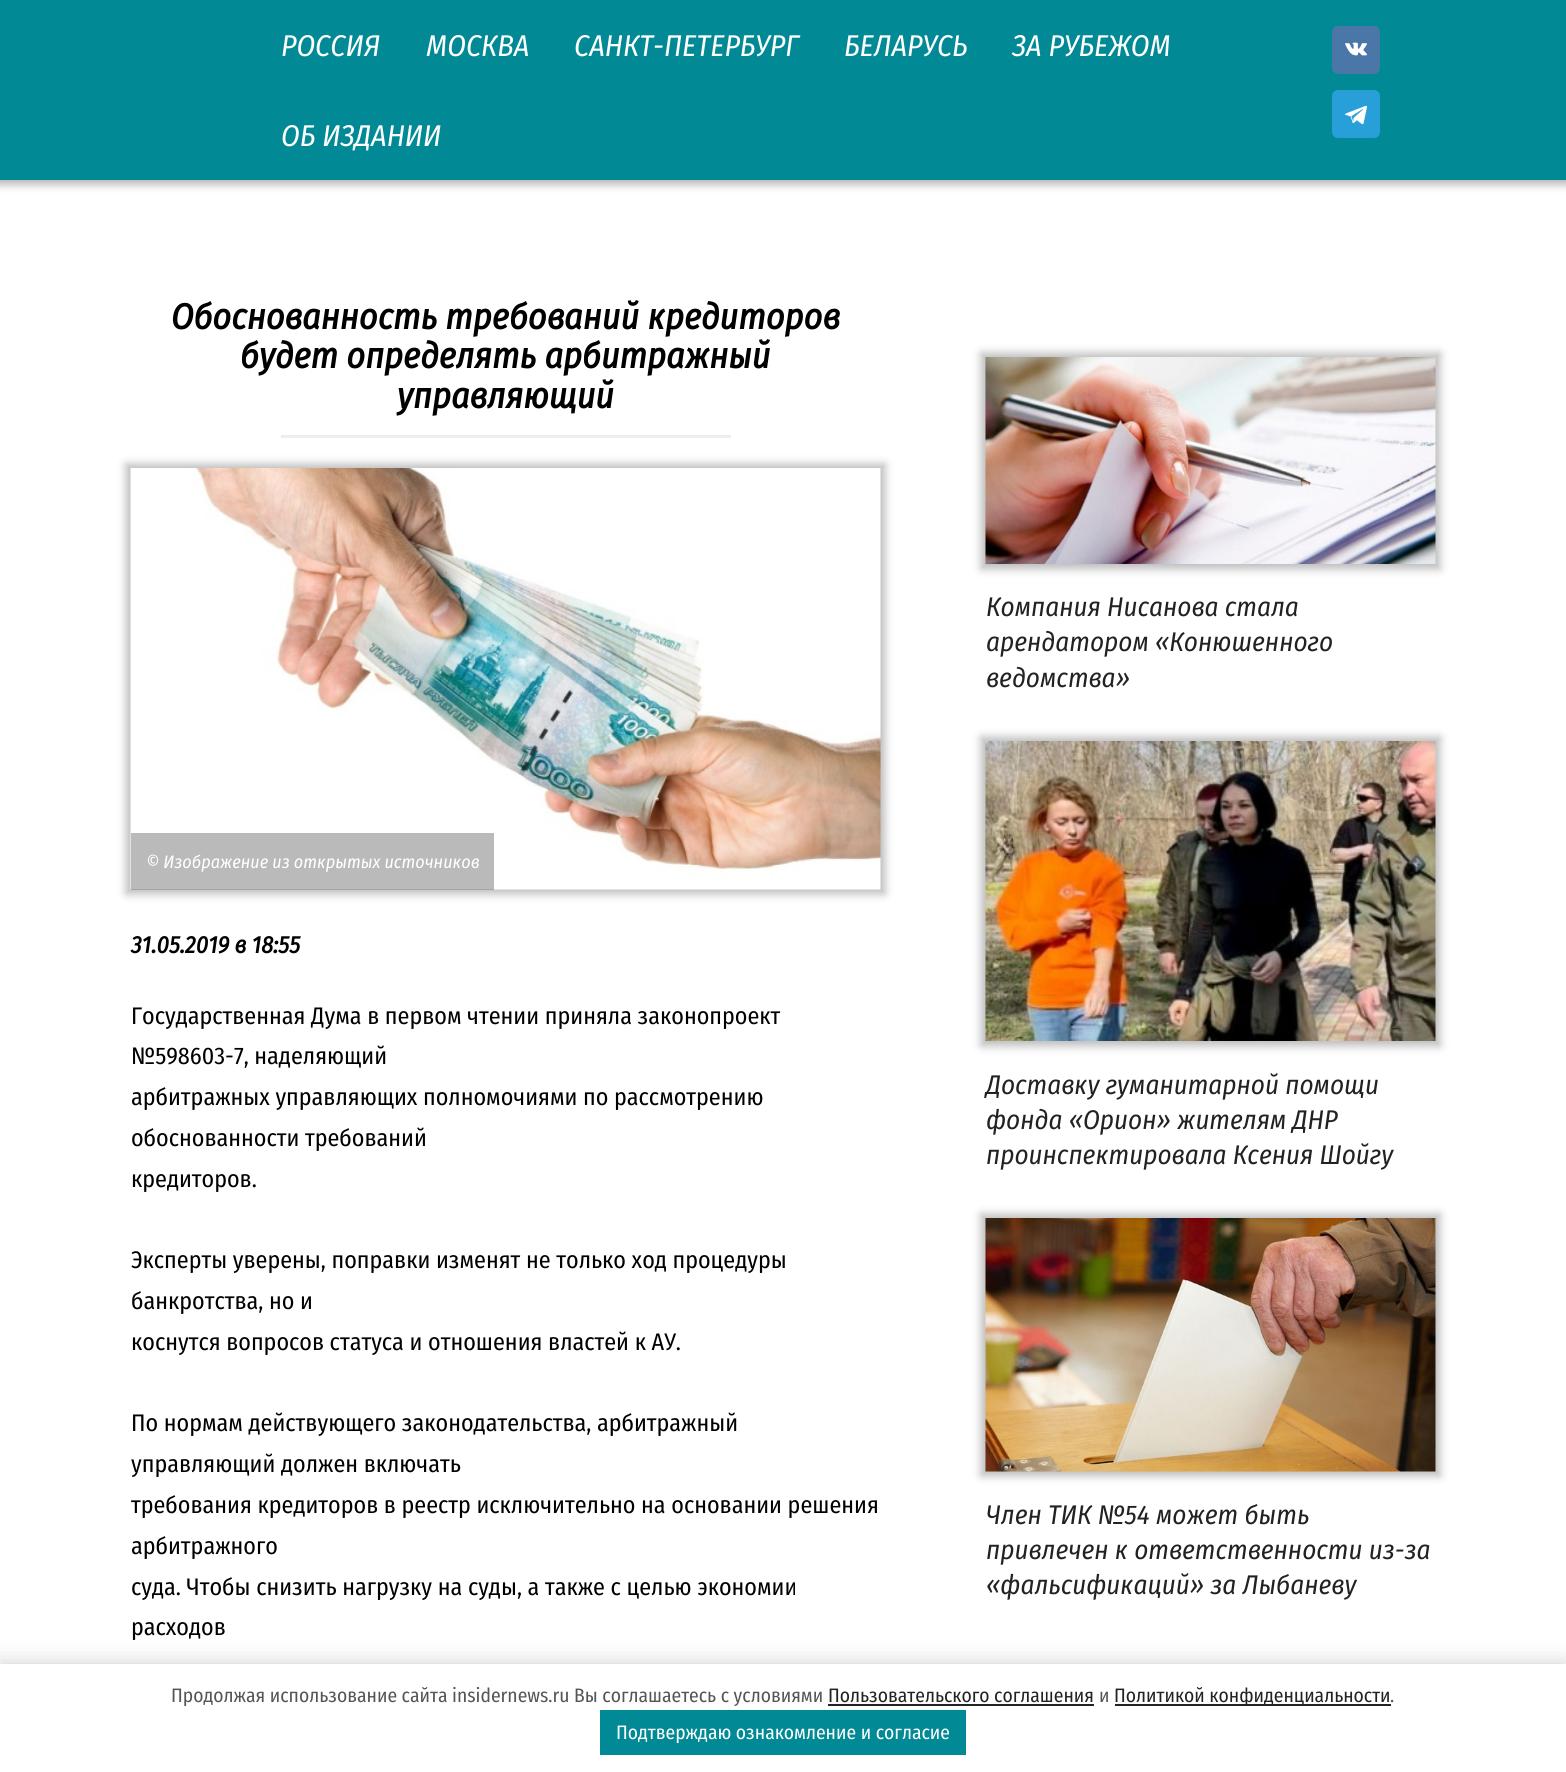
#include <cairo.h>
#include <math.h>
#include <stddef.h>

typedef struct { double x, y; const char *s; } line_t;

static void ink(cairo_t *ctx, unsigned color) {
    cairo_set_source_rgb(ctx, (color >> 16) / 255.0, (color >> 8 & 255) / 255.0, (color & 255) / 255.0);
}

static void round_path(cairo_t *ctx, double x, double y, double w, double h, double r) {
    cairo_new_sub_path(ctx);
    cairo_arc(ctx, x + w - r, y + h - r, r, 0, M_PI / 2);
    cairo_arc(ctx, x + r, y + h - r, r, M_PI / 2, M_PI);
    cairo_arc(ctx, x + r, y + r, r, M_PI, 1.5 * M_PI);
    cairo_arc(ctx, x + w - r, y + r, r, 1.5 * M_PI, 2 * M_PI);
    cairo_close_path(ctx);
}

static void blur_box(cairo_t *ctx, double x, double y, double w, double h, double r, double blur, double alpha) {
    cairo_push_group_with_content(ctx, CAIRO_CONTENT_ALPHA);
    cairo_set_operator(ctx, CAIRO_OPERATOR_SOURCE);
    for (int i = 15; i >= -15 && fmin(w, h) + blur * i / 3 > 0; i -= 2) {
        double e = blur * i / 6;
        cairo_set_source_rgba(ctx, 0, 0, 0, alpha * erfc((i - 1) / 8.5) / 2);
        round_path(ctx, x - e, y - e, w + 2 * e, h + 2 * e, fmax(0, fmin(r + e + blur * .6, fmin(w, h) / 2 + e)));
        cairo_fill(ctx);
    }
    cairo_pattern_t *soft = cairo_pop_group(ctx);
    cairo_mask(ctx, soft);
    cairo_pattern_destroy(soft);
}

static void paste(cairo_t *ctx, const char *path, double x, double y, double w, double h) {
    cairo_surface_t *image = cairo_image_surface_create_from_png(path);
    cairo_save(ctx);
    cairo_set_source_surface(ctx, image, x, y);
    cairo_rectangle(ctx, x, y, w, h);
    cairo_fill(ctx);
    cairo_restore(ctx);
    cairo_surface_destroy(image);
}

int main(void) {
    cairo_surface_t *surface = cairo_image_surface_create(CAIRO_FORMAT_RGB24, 1566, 1772);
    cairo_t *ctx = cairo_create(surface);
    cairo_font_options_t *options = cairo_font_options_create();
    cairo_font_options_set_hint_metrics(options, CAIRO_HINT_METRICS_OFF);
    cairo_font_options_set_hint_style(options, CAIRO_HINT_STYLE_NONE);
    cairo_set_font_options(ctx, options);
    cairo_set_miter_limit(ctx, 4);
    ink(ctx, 0xFFFFFF);
    cairo_paint(ctx);
    ink(ctx, 0x000000);
    blur_box(ctx, -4, -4, 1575, 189, 0, 4, 0.27);
    ink(ctx, 0x018A95);
    cairo_rectangle(ctx, 0, 0, 1566, 180);
    cairo_fill(ctx);
    cairo_select_font_face(ctx, "Fira Sans Condensed", CAIRO_FONT_SLANT_ITALIC, CAIRO_FONT_WEIGHT_NORMAL);
    cairo_set_font_size(ctx, 30);
    ink(ctx, 0xFFFFFF);
    {
        static const line_t items[] = {
            {281, 56, "РОССИЯ"},
            {426, 56, "МОСКВА"},
            {574, 56, "САНКТ-ПЕТЕРБУРГ"},
            {844, 56, "БЕЛАРУСЬ"},
            {1012, 56, "ЗА РУБЕЖОМ"},
            {281, 146, "ОБ ИЗДАНИИ"},
        };
        for (size_t i = 0; i < sizeof items / sizeof *items; i++) {
            cairo_move_to(ctx, items[i].x, items[i].y);
            cairo_show_text(ctx, items[i].s);
        }
    }
    ink(ctx, 0x4A76A8);
    round_path(ctx, 1332, 26, 48, 48, 6);
    cairo_fill(ctx);
    paste(ctx, "media/1.png", 1345, 42, 22, 14);
    ink(ctx, 0x289FD9);
    round_path(ctx, 1332, 90, 48, 48, 6);
    cairo_fill(ctx);
    paste(ctx, "media/2.png", 1345, 105, 22, 20);
    cairo_select_font_face(ctx, "Fira Sans Condensed", CAIRO_FONT_SLANT_ITALIC, CAIRO_FONT_WEIGHT_BOLD);
    cairo_set_font_size(ctx, 36);
    ink(ctx, 0x000000);
    {
        static const line_t items[] = {
            {171, 329, "Обоснованность требований кредиторов"},
            {240, 368, "будет определять арбитражный"},
            {397, 408, "управляющий"},
        };
        for (size_t i = 0; i < sizeof items / sizeof *items; i++) {
            cairo_move_to(ctx, items[i].x, items[i].y);
            cairo_show_text(ctx, items[i].s);
        }
    }
    ink(ctx, 0xEEEEEE);
    cairo_rectangle(ctx, 281, 435, 450, 3);
    cairo_fill(ctx);
    ink(ctx, 0x000000);
    blur_box(ctx, 126, 464, 759, 430, 0, 4.5, 0.27);
    paste(ctx, "media/3.png", 130, 468, 751, 422);
    cairo_set_source_rgba(ctx, 0, 0, 0, 0.27);
    cairo_rectangle(ctx, 131, 833, 363, 57);
    cairo_fill(ctx);
    cairo_select_font_face(ctx, "Fira Sans Condensed", CAIRO_FONT_SLANT_ITALIC, CAIRO_FONT_WEIGHT_NORMAL);
    cairo_set_font_size(ctx, 18);
    ink(ctx, 0xFFFFFF);
    cairo_move_to(ctx, 146, 868);
    cairo_show_text(ctx, "© Изображение из открытых источников");
    cairo_select_font_face(ctx, "Fira Sans Condensed", CAIRO_FONT_SLANT_ITALIC, CAIRO_FONT_WEIGHT_BOLD);
    cairo_set_font_size(ctx, 24);
    ink(ctx, 0x000000);
    cairo_move_to(ctx, 131, 953);
    cairo_show_text(ctx, "31.05.2019 в 18:55");
    cairo_select_font_face(ctx, "Fira Sans Condensed", CAIRO_FONT_SLANT_NORMAL, CAIRO_FONT_WEIGHT_NORMAL);
    {
        static const line_t items[] = {
            {131, 1024, "Государственная Дума в первом чтении приняла законопроект"},
            {131, 1064, "№598603-7, наделяющий"},
            {131, 1105, "арбитражных управляющих полномочиями по рассмотрению"},
            {131, 1146, "обоснованности требований"},
            {131, 1187, "кредиторов."},
            {131, 1268, "Эксперты уверены, поправки изменят не только ход процедуры"},
            {131, 1309, "банкротства, но и"},
            {131, 1350, "коснутся вопросов статуса и отношения властей к АУ."},
            {131, 1431, "По нормам действующего законодательства, арбитражный"},
            {131, 1472, "управляющий должен включать"},
            {131, 1513, "требования кредиторов в реестр исключительно на основании решения"},
            {131, 1554, "арбитражного"},
            {131, 1595, "суда. Чтобы снизить нагрузку на суды, а также с целью экономии"},
            {131, 1635, "расходов"},
        };
        for (size_t i = 0; i < sizeof items / sizeof *items; i++) {
            cairo_move_to(ctx, items[i].x, items[i].y);
            cairo_show_text(ctx, items[i].s);
        }
    }
    ink(ctx, 0x000000);
    blur_box(ctx, 981, 353, 459, 216, 0, 4.5, 0.27);
    paste(ctx, "media/4.png", 985, 357, 451, 207);
    cairo_select_font_face(ctx, "Fira Sans Condensed", CAIRO_FONT_SLANT_ITALIC, CAIRO_FONT_WEIGHT_NORMAL);
    cairo_set_font_size(ctx, 27);
    ink(ctx, 0x222222);
    {
        static const line_t items[] = {
            {986, 616, "Компания Нисанова стала"},
            {986, 651, "арендатором «Конюшенного"},
            {986, 687, "ведомства»"},
        };
        for (size_t i = 0; i < sizeof items / sizeof *items; i++) {
            cairo_move_to(ctx, items[i].x, items[i].y);
            cairo_show_text(ctx, items[i].s);
        }
    }
    ink(ctx, 0x000000);
    blur_box(ctx, 981, 737, 459, 309, 0, 4.5, 0.27);
    paste(ctx, "media/5.png", 985, 741, 451, 300);
    ink(ctx, 0x222222);
    {
        static const line_t items[] = {
            {986, 1094, "Доставку гуманитарной помощи"},
            {986, 1129, "фонда «Орион» жителям ДНР"},
            {986, 1164, "проинспектировала Ксения Шойгу"},
        };
        for (size_t i = 0; i < sizeof items / sizeof *items; i++) {
            cairo_move_to(ctx, items[i].x, items[i].y);
            cairo_show_text(ctx, items[i].s);
        }
    }
    ink(ctx, 0x000000);
    blur_box(ctx, 981, 1214, 459, 262, 0, 4.5, 0.27);
    paste(ctx, "media/6.png", 985, 1218, 451, 254);
    ink(ctx, 0x222222);
    {
        static const line_t items[] = {
            {986, 1524, "Член ТИК №54 может быть"},
            {986, 1559, "привлечен к ответственности из-за"},
            {986, 1594, "«фальсификаций» за Лыбаневу"},
        };
        for (size_t i = 0; i < sizeof items / sizeof *items; i++) {
            cairo_move_to(ctx, items[i].x, items[i].y);
            cairo_show_text(ctx, items[i].s);
        }
    }
    ink(ctx, 0x000000);
    blur_box(ctx, 0, 1664, 1566, 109, 0, 11, 0.2);
    ink(ctx, 0xFFFFFF);
    cairo_rectangle(ctx, 0, 1664, 1566, 108);
    cairo_fill(ctx);
    cairo_select_font_face(ctx, "Fira Sans Condensed", CAIRO_FONT_SLANT_NORMAL, CAIRO_FONT_WEIGHT_NORMAL);
    cairo_set_font_size(ctx, 19.5);
    ink(ctx, 0x555555);
    cairo_move_to(ctx, 171, 1702);
    cairo_show_text(ctx, "Продолжая использование сайта insidernews.ru Вы соглашаетесь с условиями");
    ink(ctx, 0x222222);
    cairo_move_to(ctx, 828, 1702);
    cairo_show_text(ctx, "Пользовательского соглашения");
    cairo_rectangle(ctx, 828, 1704, 266, 2);
    cairo_fill(ctx);
    ink(ctx, 0x555555);
    cairo_move_to(ctx, 1099, 1702);
    cairo_show_text(ctx, "и");
    ink(ctx, 0x222222);
    cairo_rectangle(ctx, 1115, 1704, 276, 2);
    cairo_fill(ctx);
    cairo_move_to(ctx, 1114, 1702);
    cairo_show_text(ctx, "Политикой конфиденциальности");
    ink(ctx, 0x555555);
    cairo_move_to(ctx, 1390, 1702);
    cairo_show_text(ctx, ".");
    ink(ctx, 0x018A95);
    cairo_rectangle(ctx, 600, 1710, 366, 45);
    cairo_fill(ctx);
    ink(ctx, 0xFFFFFF);
    cairo_move_to(ctx, 616, 1739);
    cairo_show_text(ctx, "Подтверждаю ознакомление и согласие");
    cairo_surface_write_to_png(surface, "image.png");
    cairo_font_options_destroy(options);
    cairo_destroy(ctx);
    cairo_surface_destroy(surface);
    return 0;
}
